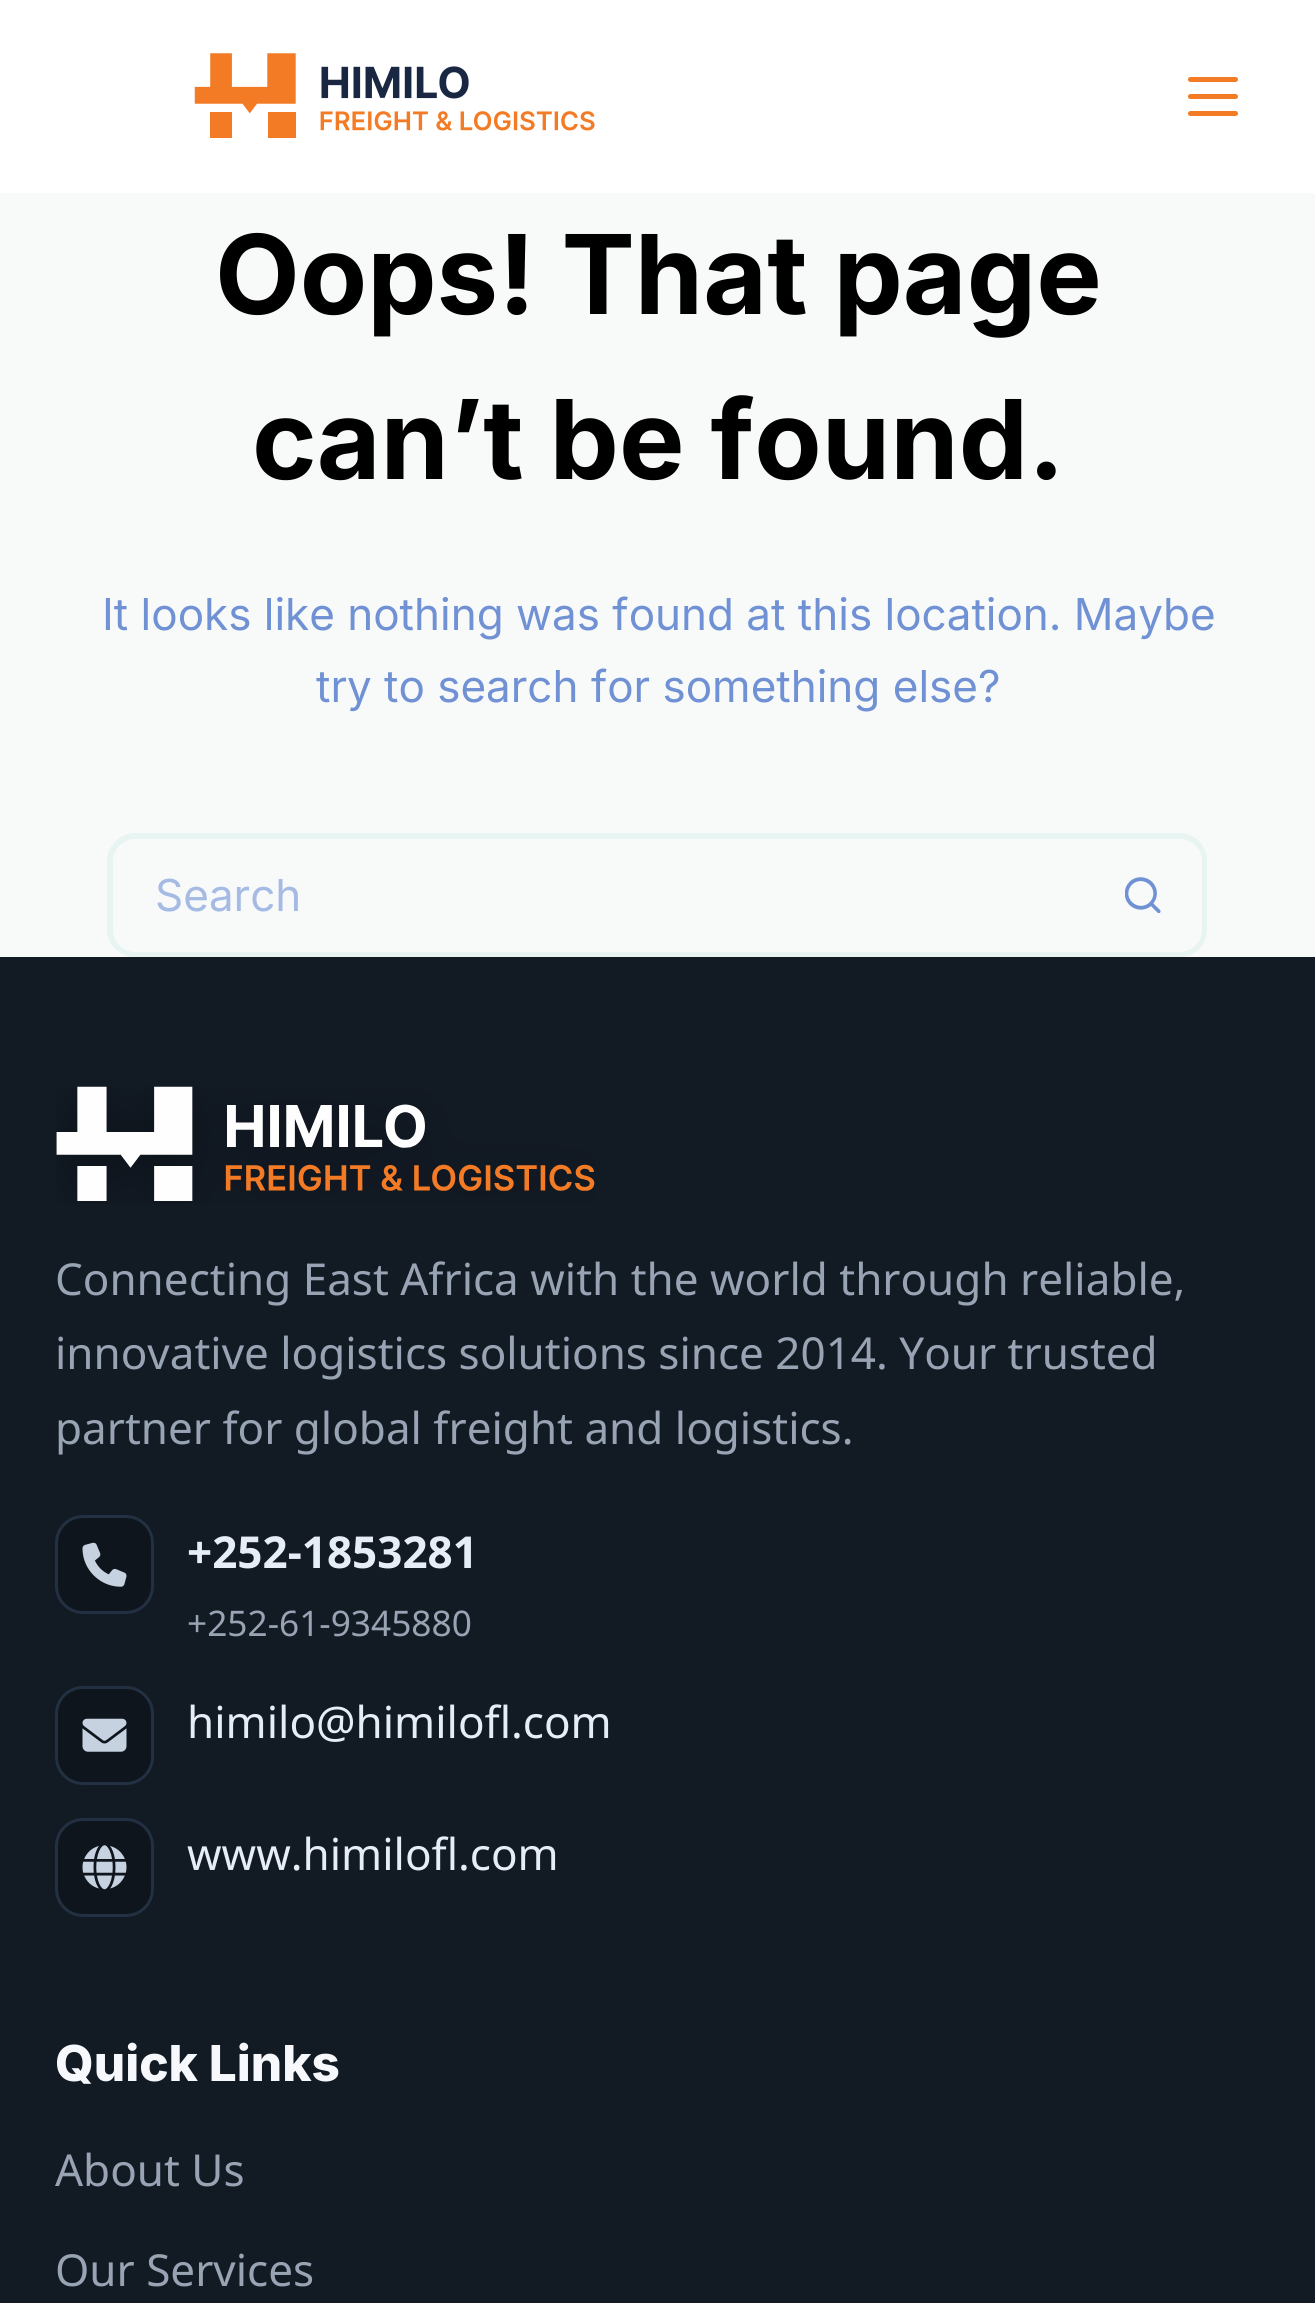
#include <cairo.h>
#include <math.h>
#include <stddef.h>

typedef struct { double x, y; const char *s; } line_t;

static void ink(cairo_t *ctx, unsigned color) {
    cairo_set_source_rgb(ctx, (color >> 16) / 255.0, (color >> 8 & 255) / 255.0, (color & 255) / 255.0);
}

static void round_path(cairo_t *ctx, double x, double y, double w, double h, double r) {
    cairo_new_sub_path(ctx);
    cairo_arc(ctx, x + w - r, y + h - r, r, 0, M_PI / 2);
    cairo_arc(ctx, x + r, y + h - r, r, M_PI / 2, M_PI);
    cairo_arc(ctx, x + r, y + r, r, M_PI, 1.5 * M_PI);
    cairo_arc(ctx, x + w - r, y + r, r, 1.5 * M_PI, 2 * M_PI);
    cairo_close_path(ctx);
}

static void paste(cairo_t *ctx, const char *path, double x, double y, double w, double h) {
    cairo_surface_t *image = cairo_image_surface_create_from_png(path);
    cairo_save(ctx);
    cairo_set_source_surface(ctx, image, x, y);
    cairo_rectangle(ctx, x, y, w, h);
    cairo_fill(ctx);
    cairo_restore(ctx);
    cairo_surface_destroy(image);
}

int main(void) {
    cairo_surface_t *surface = cairo_image_surface_create(CAIRO_FORMAT_RGB24, 1315, 2303);
    cairo_t *ctx = cairo_create(surface);
    cairo_font_options_t *options = cairo_font_options_create();
    cairo_font_options_set_hint_metrics(options, CAIRO_HINT_METRICS_OFF);
    cairo_font_options_set_hint_style(options, CAIRO_HINT_STYLE_NONE);
    cairo_set_font_options(ctx, options);
    cairo_set_miter_limit(ctx, 4);
    ink(ctx, 0xF8FAFA);
    cairo_paint(ctx);
    ink(ctx, 0xFFFFFF);
    cairo_rectangle(ctx, 0, 0, 1315, 193);
    cairo_fill(ctx);
    paste(ctx, "media/1.png", 194, 53, 401, 85);
    ink(ctx, 0xF47B25);
    round_path(ctx, 1188, 77, 50, 5, 2.5);
    cairo_fill(ctx);
    round_path(ctx, 1188, 94, 50, 5, 2.5);
    cairo_fill(ctx);
    round_path(ctx, 1188, 111, 50, 5, 2.5);
    cairo_fill(ctx);
    cairo_select_font_face(ctx, "Inter", CAIRO_FONT_SLANT_NORMAL, CAIRO_FONT_WEIGHT_BOLD);
    cairo_set_font_size(ctx, 110);
    ink(ctx, 0x000000);
    cairo_move_to(ctx, 215, 314);
    cairo_show_text(ctx, "Oops! That page");
    cairo_move_to(ctx, 252, 479);
    cairo_show_text(ctx, "can’t be found.");
    cairo_select_font_face(ctx, "Inter", CAIRO_FONT_SLANT_NORMAL, CAIRO_FONT_WEIGHT_NORMAL);
    cairo_set_font_size(ctx, 44);
    ink(ctx, 0x7091D4);
    cairo_move_to(ctx, 102, 630);
    cairo_show_text(ctx, "It looks like nothing was found at this location. Maybe");
    cairo_move_to(ctx, 316, 702);
    cairo_show_text(ctx, "try to search for something else?");
    ink(ctx, 0xE7F4F1);
    cairo_set_fill_rule(ctx, CAIRO_FILL_RULE_EVEN_ODD);
    cairo_new_path(ctx);
    cairo_move_to(ctx, 135, 833);
    cairo_line_to(ctx, 1084, 833);
    cairo_line_to(ctx, 1084, 957);
    cairo_line_to(ctx, 135, 957);
    cairo_curve_to(ctx, 120, 957, 107, 945, 107, 930);
    cairo_line_to(ctx, 107, 861);
    cairo_curve_to(ctx, 107, 846, 120, 833, 135, 833);
    cairo_close_path(ctx);
    cairo_move_to(ctx, 135, 839);
    cairo_line_to(ctx, 1084, 839);
    cairo_line_to(ctx, 1084, 952);
    cairo_line_to(ctx, 135, 952);
    cairo_curve_to(ctx, 123, 952, 113, 942, 113, 930);
    cairo_line_to(ctx, 113, 861);
    cairo_curve_to(ctx, 113, 849, 123, 839, 135, 839);
    cairo_close_path(ctx);
    cairo_fill(ctx);
    ink(ctx, 0xA6BBE3);
    cairo_move_to(ctx, 155, 911);
    cairo_show_text(ctx, "Search");
    ink(ctx, 0xE7F4F1);
    cairo_new_path(ctx);
    cairo_move_to(ctx, 1084, 833);
    cairo_line_to(ctx, 1180, 833);
    cairo_curve_to(ctx, 1195, 833, 1207, 846, 1207, 861);
    cairo_line_to(ctx, 1207, 930);
    cairo_curve_to(ctx, 1207, 945, 1195, 957, 1180, 957);
    cairo_line_to(ctx, 1084, 957);
    cairo_close_path(ctx);
    cairo_move_to(ctx, 1084, 839);
    cairo_line_to(ctx, 1180, 839);
    cairo_curve_to(ctx, 1192, 839, 1202, 849, 1202, 861);
    cairo_line_to(ctx, 1202, 930);
    cairo_curve_to(ctx, 1202, 942, 1192, 952, 1180, 952);
    cairo_line_to(ctx, 1084, 952);
    cairo_close_path(ctx);
    cairo_fill(ctx);
    paste(ctx, "media/2.png", 1125, 877, 36, 36);
    ink(ctx, 0x121A24);
    cairo_rectangle(ctx, 0, 957, 1315, 1346);
    cairo_fill(ctx);
    paste(ctx, "media/3.png", 56, 1086, 539, 118);
    cairo_select_font_face(ctx, "Noto Sans", CAIRO_FONT_SLANT_NORMAL, CAIRO_FONT_WEIGHT_NORMAL);
    ink(ctx, 0x98A3B3);
    {
        static const line_t items[] = {
            {55, 1295, "Connecting East Africa with the world through reliable,"},
            {55, 1369, "innovative logistics solutions since 2014. Your trusted"},
            {55, 1444, "partner for global freight and logistics."},
        };
        for (size_t i = 0; i < sizeof items / sizeof *items; i++) {
            cairo_move_to(ctx, items[i].x, items[i].y);
            cairo_show_text(ctx, items[i].s);
        }
    }
    ink(ctx, 0x0E151D);
    round_path(ctx, 56.5, 1516.5, 96, 96, 26.5);
    cairo_fill_preserve(ctx);
    ink(ctx, 0x223042);
    cairo_set_line_width(ctx, 3);
    cairo_stroke(ctx);
    paste(ctx, "media/4.png", 82, 1542, 45, 45);
    cairo_select_font_face(ctx, "Noto Sans", CAIRO_FONT_SLANT_NORMAL, CAIRO_FONT_WEIGHT_BOLD);
    ink(ctx, 0xE7EDF6);
    cairo_move_to(ctx, 187, 1568);
    cairo_show_text(ctx, "+252-1853281");
    cairo_select_font_face(ctx, "Noto Sans", CAIRO_FONT_SLANT_NORMAL, CAIRO_FONT_WEIGHT_NORMAL);
    cairo_set_font_size(ctx, 35.25);
    ink(ctx, 0x98A3B3);
    cairo_move_to(ctx, 187, 1636);
    cairo_show_text(ctx, "+252-61-9345880");
    ink(ctx, 0x0E151D);
    round_path(ctx, 56.5, 1687.5, 96, 96, 26.5);
    cairo_fill_preserve(ctx);
    ink(ctx, 0x223042);
    cairo_stroke(ctx);
    paste(ctx, "media/5.png", 82, 1718, 45, 34);
    cairo_set_font_size(ctx, 44);
    ink(ctx, 0xE7EDF6);
    cairo_move_to(ctx, 187, 1738);
    cairo_show_text(ctx, "himilo@himilofl.com");
    ink(ctx, 0x0E151D);
    round_path(ctx, 56.5, 1819.5, 96, 96, 26.5);
    cairo_fill_preserve(ctx);
    ink(ctx, 0x223042);
    cairo_stroke(ctx);
    paste(ctx, "media/6.png", 82, 1845, 45, 45);
    ink(ctx, 0xE7EDF6);
    cairo_move_to(ctx, 187, 1870);
    cairo_show_text(ctx, "www.himilofl.com");
    cairo_select_font_face(ctx, "Inter ExtraBold", CAIRO_FONT_SLANT_NORMAL, CAIRO_FONT_WEIGHT_NORMAL);
    cairo_set_font_size(ctx, 49.5);
    ink(ctx, 0xF6F8FB);
    cairo_move_to(ctx, 55, 2081);
    cairo_show_text(ctx, "Quick Links");
    cairo_select_font_face(ctx, "Noto Sans", CAIRO_FONT_SLANT_NORMAL, CAIRO_FONT_WEIGHT_NORMAL);
    cairo_set_font_size(ctx, 44);
    ink(ctx, 0x98A3B3);
    cairo_move_to(ctx, 55, 2186);
    cairo_show_text(ctx, "About Us");
    cairo_move_to(ctx, 55, 2286);
    cairo_show_text(ctx, "Our Services");
    cairo_surface_write_to_png(surface, "image.png");
    cairo_font_options_destroy(options);
    cairo_destroy(ctx);
    cairo_surface_destroy(surface);
    return 0;
}
